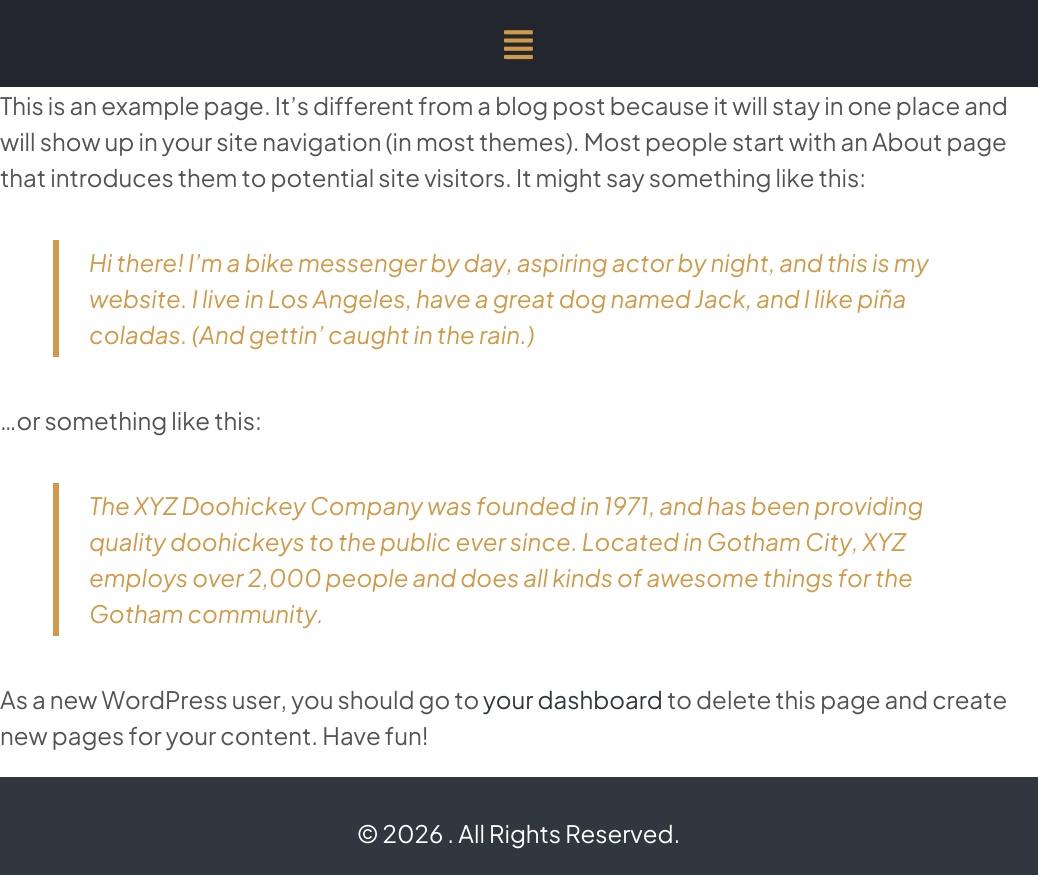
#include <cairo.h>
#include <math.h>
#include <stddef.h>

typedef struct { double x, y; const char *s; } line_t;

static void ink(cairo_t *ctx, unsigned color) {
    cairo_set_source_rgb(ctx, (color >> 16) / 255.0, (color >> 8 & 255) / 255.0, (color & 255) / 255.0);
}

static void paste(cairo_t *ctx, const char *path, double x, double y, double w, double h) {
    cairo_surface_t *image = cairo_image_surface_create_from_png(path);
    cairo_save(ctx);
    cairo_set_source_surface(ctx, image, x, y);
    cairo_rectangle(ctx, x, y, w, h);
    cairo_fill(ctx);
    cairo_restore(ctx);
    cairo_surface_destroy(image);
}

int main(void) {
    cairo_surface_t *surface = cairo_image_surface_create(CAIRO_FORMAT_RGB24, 1038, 875);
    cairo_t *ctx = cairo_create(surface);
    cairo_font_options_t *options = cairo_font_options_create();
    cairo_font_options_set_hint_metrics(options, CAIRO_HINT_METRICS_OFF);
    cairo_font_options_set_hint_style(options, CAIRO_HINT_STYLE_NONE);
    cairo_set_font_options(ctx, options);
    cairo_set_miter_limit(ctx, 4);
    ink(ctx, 0xFFFFFF);
    cairo_paint(ctx);
    ink(ctx, 0x23262D);
    cairo_rectangle(ctx, 0, 0, 1038, 87);
    cairo_fill(ctx);
    paste(ctx, "media/1.png", 504, 30, 29, 30);
    cairo_select_font_face(ctx, "Plus Jakarta Sans", CAIRO_FONT_SLANT_NORMAL, CAIRO_FONT_WEIGHT_NORMAL);
    cairo_set_font_size(ctx, 24);
    ink(ctx, 0x535353);
    {
        static const line_t items[] = {
            {0, 115, "This is an example page. It’s different from a blog post because it will stay in one place and"},
            {0, 151, "will show up in your site navigation (in most themes). Most people start with an About page"},
            {0, 187, "that introduces them to potential site visitors. It might say something like this:"},
        };
        for (size_t i = 0; i < sizeof items / sizeof *items; i++) {
            cairo_move_to(ctx, items[i].x, items[i].y);
            cairo_show_text(ctx, items[i].s);
        }
    }
    ink(ctx, 0xD09A48);
    cairo_rectangle(ctx, 53, 240, 6, 117);
    cairo_fill(ctx);
    cairo_select_font_face(ctx, "Plus Jakarta Sans", CAIRO_FONT_SLANT_ITALIC, CAIRO_FONT_WEIGHT_NORMAL);
    {
        static const line_t items[] = {
            {89, 272, "Hi there! I’m a bike messenger by day, aspiring actor by night, and this is my"},
            {89, 308, "website. I live in Los Angeles, have a great dog named Jack, and I like piña"},
            {89, 344, "coladas. (And gettin’ caught in the rain.)"},
        };
        for (size_t i = 0; i < sizeof items / sizeof *items; i++) {
            cairo_move_to(ctx, items[i].x, items[i].y);
            cairo_show_text(ctx, items[i].s);
        }
    }
    cairo_select_font_face(ctx, "Plus Jakarta Sans", CAIRO_FONT_SLANT_NORMAL, CAIRO_FONT_WEIGHT_NORMAL);
    ink(ctx, 0x535353);
    cairo_move_to(ctx, 0, 430);
    cairo_show_text(ctx, "…or something like this:");
    ink(ctx, 0xD09A48);
    cairo_rectangle(ctx, 53, 483, 6, 153);
    cairo_fill(ctx);
    cairo_select_font_face(ctx, "Plus Jakarta Sans", CAIRO_FONT_SLANT_ITALIC, CAIRO_FONT_WEIGHT_NORMAL);
    {
        static const line_t items[] = {
            {89, 515, "The XYZ Doohickey Company was founded in 1971, and has been providing"},
            {89, 551, "quality doohickeys to the public ever since. Located in Gotham City, XYZ"},
            {89, 587, "employs over 2,000 people and does all kinds of awesome things for the"},
            {89, 623, "Gotham community."},
        };
        for (size_t i = 0; i < sizeof items / sizeof *items; i++) {
            cairo_move_to(ctx, items[i].x, items[i].y);
            cairo_show_text(ctx, items[i].s);
        }
    }
    cairo_select_font_face(ctx, "Plus Jakarta Sans", CAIRO_FONT_SLANT_NORMAL, CAIRO_FONT_WEIGHT_NORMAL);
    ink(ctx, 0x535353);
    cairo_move_to(ctx, 0, 709);
    cairo_show_text(ctx, "As a new WordPress user, you should go to");
    ink(ctx, 0x30373E);
    cairo_move_to(ctx, 483, 709);
    cairo_show_text(ctx, "your dashboard");
    ink(ctx, 0x535353);
    cairo_move_to(ctx, 667, 709);
    cairo_show_text(ctx, "to delete this page and create");
    cairo_move_to(ctx, 0, 745);
    cairo_show_text(ctx, "new pages for your content. Have fun!");
    ink(ctx, 0x30373E);
    cairo_rectangle(ctx, 0, 777, 1038, 98);
    cairo_fill(ctx);
    ink(ctx, 0xFFFFFF);
    cairo_move_to(ctx, 357, 843);
    cairo_show_text(ctx, "© 2026 . All Rights Reserved.");
    cairo_surface_write_to_png(surface, "image.png");
    cairo_font_options_destroy(options);
    cairo_destroy(ctx);
    cairo_surface_destroy(surface);
    return 0;
}
